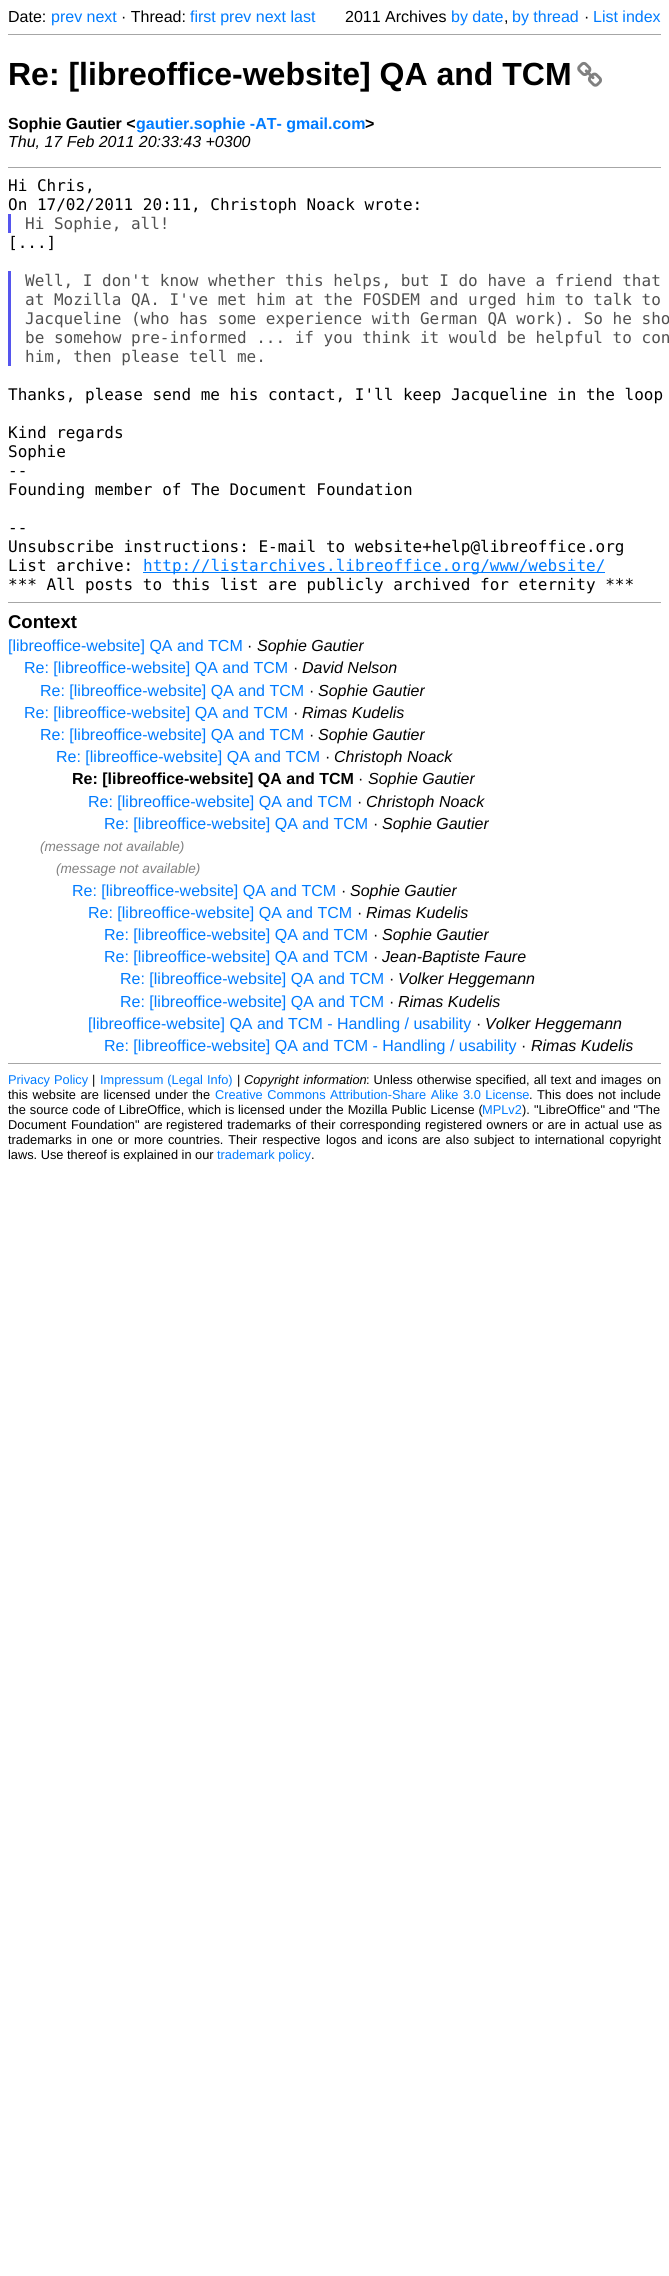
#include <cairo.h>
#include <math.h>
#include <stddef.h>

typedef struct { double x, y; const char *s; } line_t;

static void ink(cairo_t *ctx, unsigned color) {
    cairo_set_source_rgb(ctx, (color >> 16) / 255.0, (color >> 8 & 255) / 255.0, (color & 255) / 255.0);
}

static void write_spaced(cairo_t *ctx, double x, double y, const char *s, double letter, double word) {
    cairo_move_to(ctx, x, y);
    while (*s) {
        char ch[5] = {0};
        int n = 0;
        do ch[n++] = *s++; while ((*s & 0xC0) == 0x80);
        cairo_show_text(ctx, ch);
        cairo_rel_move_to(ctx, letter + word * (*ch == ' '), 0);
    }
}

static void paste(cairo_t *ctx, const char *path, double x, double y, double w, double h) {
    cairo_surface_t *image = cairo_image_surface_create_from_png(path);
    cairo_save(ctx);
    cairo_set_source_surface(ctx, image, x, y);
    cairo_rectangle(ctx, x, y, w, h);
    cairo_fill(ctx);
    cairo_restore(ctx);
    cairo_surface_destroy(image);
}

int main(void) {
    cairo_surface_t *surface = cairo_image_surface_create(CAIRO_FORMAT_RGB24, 669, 2276);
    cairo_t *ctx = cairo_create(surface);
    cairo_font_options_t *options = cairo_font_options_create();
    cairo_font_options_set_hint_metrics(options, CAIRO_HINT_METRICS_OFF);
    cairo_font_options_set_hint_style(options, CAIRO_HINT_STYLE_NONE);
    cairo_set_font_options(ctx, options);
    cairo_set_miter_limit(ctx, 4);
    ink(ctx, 0xFFFFFF);
    cairo_paint(ctx);
    cairo_select_font_face(ctx, "Liberation Sans", CAIRO_FONT_SLANT_NORMAL, CAIRO_FONT_WEIGHT_NORMAL);
    cairo_set_font_size(ctx, 16);
    ink(ctx, 0x000000);
    cairo_move_to(ctx, 8, 22);
    cairo_show_text(ctx, "Date:");
    ink(ctx, 0x007BFF);
    cairo_move_to(ctx, 51, 22);
    cairo_show_text(ctx, "prev next");
    ink(ctx, 0x000000);
    cairo_move_to(ctx, 121, 22);
    cairo_show_text(ctx, "· Thread:");
    ink(ctx, 0x007BFF);
    cairo_move_to(ctx, 190, 22);
    cairo_show_text(ctx, "first prev next last");
    ink(ctx, 0x000000);
    cairo_move_to(ctx, 345, 22);
    cairo_show_text(ctx, "2011 Archives");
    ink(ctx, 0x007BFF);
    cairo_move_to(ctx, 451, 22);
    cairo_show_text(ctx, "by date");
    cairo_move_to(ctx, 512, 22);
    cairo_show_text(ctx, "by thread");
    ink(ctx, 0x000000);
    cairo_move_to(ctx, 584, 22);
    cairo_show_text(ctx, "·");
    ink(ctx, 0x007BFF);
    cairo_move_to(ctx, 593, 22);
    cairo_show_text(ctx, "List index");
    ink(ctx, 0x000000);
    cairo_move_to(ctx, 504, 22);
    cairo_show_text(ctx, ",");
    ink(ctx, 0xA6A6A6);
    cairo_rectangle(ctx, 8, 34, 653, 1);
    cairo_fill(ctx);
    cairo_select_font_face(ctx, "Liberation Sans", CAIRO_FONT_SLANT_NORMAL, CAIRO_FONT_WEIGHT_BOLD);
    cairo_set_font_size(ctx, 32);
    ink(ctx, 0x000000);
    cairo_move_to(ctx, 8, 85);
    cairo_show_text(ctx, "Re: [libreoffice-website] QA and TCM");
    paste(ctx, "media/1.png", 577, 61, 25, 26);
    cairo_set_font_size(ctx, 16);
    cairo_move_to(ctx, 8, 129);
    cairo_show_text(ctx, "Sophie Gautier <");
    ink(ctx, 0x007BFF);
    cairo_move_to(ctx, 136, 129);
    cairo_show_text(ctx, "gautier.sophie -AT- gmail.com");
    ink(ctx, 0x000000);
    cairo_move_to(ctx, 365, 129);
    cairo_show_text(ctx, ">");
    cairo_select_font_face(ctx, "Liberation Sans", CAIRO_FONT_SLANT_ITALIC, CAIRO_FONT_WEIGHT_NORMAL);
    cairo_move_to(ctx, 8, 147);
    cairo_show_text(ctx, "Thu, 17 Feb 2011 20:33:43 +0300");
    ink(ctx, 0xA6A6A6);
    cairo_rectangle(ctx, 8, 167, 653, 1);
    cairo_fill(ctx);
    cairo_select_font_face(ctx, "DejaVu Sans Mono", CAIRO_FONT_SLANT_NORMAL, CAIRO_FONT_WEIGHT_NORMAL);
    ink(ctx, 0x000000);
    cairo_move_to(ctx, 8, 191);
    cairo_show_text(ctx, "Hi Chris,");
    cairo_move_to(ctx, 8, 210);
    cairo_show_text(ctx, "On 17/02/2011 20:11, Christoph Noack wrote:");
    ink(ctx, 0x5555EE);
    cairo_rectangle(ctx, 8, 214, 3, 19);
    cairo_fill(ctx);
    ink(ctx, 0x505050);
    cairo_move_to(ctx, 25, 229);
    cairo_show_text(ctx, "Hi Sophie, all!");
    ink(ctx, 0x000000);
    cairo_move_to(ctx, 8, 248);
    cairo_show_text(ctx, "[...]");
    ink(ctx, 0x5555EE);
    cairo_rectangle(ctx, 8, 271, 3, 95);
    cairo_fill(ctx);
    ink(ctx, 0x505050);
    {
        static const line_t items[] = {
            {25, 286, "Well, I don't know whether this helps, but I do have a friend that"},
            {25, 305, "at Mozilla QA. I've met him at the FOSDEM and urged him to talk to"},
            {25, 324, "Jacqueline (who has some experience with German QA work). So he sho"},
            {25, 343, "be somehow pre-informed ... if you think it would be helpful to con"},
            {25, 362, "him, then please tell me."},
        };
        for (size_t i = 0; i < sizeof items / sizeof *items; i++) {
            cairo_move_to(ctx, items[i].x, items[i].y);
            cairo_show_text(ctx, items[i].s);
        }
    }
    ink(ctx, 0x000000);
    {
        static const line_t items[] = {
            {8, 400, "Thanks, please send me his contact, I'll keep Jacqueline in the loop"},
            {8, 438, "Kind regards"},
            {8, 457, "Sophie"},
            {8, 476, "--"},
            {8, 495, "Founding member of The Document Foundation"},
            {8, 533, "--"},
            {8, 552, "Unsubscribe instructions: E-mail to website+help@libreoffice.org"},
            {8, 571, "List archive:"},
        };
        for (size_t i = 0; i < sizeof items / sizeof *items; i++) {
            cairo_move_to(ctx, items[i].x, items[i].y);
            cairo_show_text(ctx, items[i].s);
        }
    }
    ink(ctx, 0x007BFF);
    cairo_rectangle(ctx, 143, 572, 462, 1);
    cairo_fill(ctx);
    cairo_move_to(ctx, 143, 571);
    cairo_show_text(ctx, "http://listarchives.libreoffice.org/www/website/");
    ink(ctx, 0x000000);
    cairo_move_to(ctx, 8, 590);
    cairo_show_text(ctx, "*** All posts to this list are publicly archived for eternity ***");
    ink(ctx, 0xA6A6A6);
    cairo_rectangle(ctx, 8, 602, 653, 1);
    cairo_fill(ctx);
    cairo_select_font_face(ctx, "Liberation Sans", CAIRO_FONT_SLANT_NORMAL, CAIRO_FONT_WEIGHT_BOLD);
    cairo_set_font_size(ctx, 18.5);
    ink(ctx, 0x000000);
    cairo_move_to(ctx, 8, 628);
    cairo_show_text(ctx, "Context");
    cairo_select_font_face(ctx, "Liberation Sans", CAIRO_FONT_SLANT_NORMAL, CAIRO_FONT_WEIGHT_NORMAL);
    cairo_set_font_size(ctx, 16);
    ink(ctx, 0x007BFF);
    cairo_move_to(ctx, 8, 651);
    cairo_show_text(ctx, "[libreoffice-website] QA and TCM");
    ink(ctx, 0x000000);
    cairo_move_to(ctx, 247, 651);
    cairo_show_text(ctx, "·");
    cairo_select_font_face(ctx, "Liberation Sans", CAIRO_FONT_SLANT_ITALIC, CAIRO_FONT_WEIGHT_NORMAL);
    cairo_move_to(ctx, 257, 651);
    cairo_show_text(ctx, "Sophie Gautier");
    cairo_select_font_face(ctx, "Liberation Sans", CAIRO_FONT_SLANT_NORMAL, CAIRO_FONT_WEIGHT_NORMAL);
    ink(ctx, 0x007BFF);
    cairo_move_to(ctx, 24, 673);
    cairo_show_text(ctx, "Re: [libreoffice-website] QA and TCM");
    ink(ctx, 0x000000);
    cairo_move_to(ctx, 293, 673);
    cairo_show_text(ctx, "·");
    cairo_select_font_face(ctx, "Liberation Sans", CAIRO_FONT_SLANT_ITALIC, CAIRO_FONT_WEIGHT_NORMAL);
    cairo_move_to(ctx, 302, 673);
    cairo_show_text(ctx, "David Nelson");
    cairo_select_font_face(ctx, "Liberation Sans", CAIRO_FONT_SLANT_NORMAL, CAIRO_FONT_WEIGHT_NORMAL);
    ink(ctx, 0x007BFF);
    cairo_move_to(ctx, 40, 696);
    cairo_show_text(ctx, "Re: [libreoffice-website] QA and TCM");
    ink(ctx, 0x000000);
    cairo_move_to(ctx, 309, 696);
    cairo_show_text(ctx, "·");
    cairo_select_font_face(ctx, "Liberation Sans", CAIRO_FONT_SLANT_ITALIC, CAIRO_FONT_WEIGHT_NORMAL);
    cairo_move_to(ctx, 318, 696);
    cairo_show_text(ctx, "Sophie Gautier");
    cairo_select_font_face(ctx, "Liberation Sans", CAIRO_FONT_SLANT_NORMAL, CAIRO_FONT_WEIGHT_NORMAL);
    ink(ctx, 0x007BFF);
    cairo_move_to(ctx, 24, 718);
    cairo_show_text(ctx, "Re: [libreoffice-website] QA and TCM");
    ink(ctx, 0x000000);
    cairo_move_to(ctx, 293, 718);
    cairo_show_text(ctx, "·");
    cairo_select_font_face(ctx, "Liberation Sans", CAIRO_FONT_SLANT_ITALIC, CAIRO_FONT_WEIGHT_NORMAL);
    cairo_move_to(ctx, 302, 718);
    cairo_show_text(ctx, "Rimas Kudelis");
    cairo_select_font_face(ctx, "Liberation Sans", CAIRO_FONT_SLANT_NORMAL, CAIRO_FONT_WEIGHT_NORMAL);
    ink(ctx, 0x007BFF);
    cairo_move_to(ctx, 40, 740);
    cairo_show_text(ctx, "Re: [libreoffice-website] QA and TCM");
    ink(ctx, 0x000000);
    cairo_move_to(ctx, 309, 740);
    cairo_show_text(ctx, "·");
    cairo_select_font_face(ctx, "Liberation Sans", CAIRO_FONT_SLANT_ITALIC, CAIRO_FONT_WEIGHT_NORMAL);
    cairo_move_to(ctx, 318, 740);
    cairo_show_text(ctx, "Sophie Gautier");
    cairo_select_font_face(ctx, "Liberation Sans", CAIRO_FONT_SLANT_NORMAL, CAIRO_FONT_WEIGHT_NORMAL);
    ink(ctx, 0x007BFF);
    cairo_move_to(ctx, 56, 762);
    cairo_show_text(ctx, "Re: [libreoffice-website] QA and TCM");
    ink(ctx, 0x000000);
    cairo_move_to(ctx, 325, 762);
    cairo_show_text(ctx, "·");
    cairo_select_font_face(ctx, "Liberation Sans", CAIRO_FONT_SLANT_ITALIC, CAIRO_FONT_WEIGHT_NORMAL);
    cairo_move_to(ctx, 334, 762);
    cairo_show_text(ctx, "Christoph Noack");
    cairo_select_font_face(ctx, "Liberation Sans", CAIRO_FONT_SLANT_NORMAL, CAIRO_FONT_WEIGHT_BOLD);
    cairo_move_to(ctx, 72, 784);
    cairo_show_text(ctx, "Re: [libreoffice-website] QA and TCM");
    cairo_select_font_face(ctx, "Liberation Sans", CAIRO_FONT_SLANT_NORMAL, CAIRO_FONT_WEIGHT_NORMAL);
    cairo_move_to(ctx, 358, 784);
    cairo_show_text(ctx, "·");
    cairo_select_font_face(ctx, "Liberation Sans", CAIRO_FONT_SLANT_ITALIC, CAIRO_FONT_WEIGHT_NORMAL);
    cairo_move_to(ctx, 368, 784);
    cairo_show_text(ctx, "Sophie Gautier");
    cairo_select_font_face(ctx, "Liberation Sans", CAIRO_FONT_SLANT_NORMAL, CAIRO_FONT_WEIGHT_NORMAL);
    ink(ctx, 0x007BFF);
    cairo_move_to(ctx, 88, 807);
    cairo_show_text(ctx, "Re: [libreoffice-website] QA and TCM");
    ink(ctx, 0x000000);
    cairo_move_to(ctx, 357, 807);
    cairo_show_text(ctx, "·");
    cairo_select_font_face(ctx, "Liberation Sans", CAIRO_FONT_SLANT_ITALIC, CAIRO_FONT_WEIGHT_NORMAL);
    cairo_move_to(ctx, 366, 807);
    cairo_show_text(ctx, "Christoph Noack");
    cairo_select_font_face(ctx, "Liberation Sans", CAIRO_FONT_SLANT_NORMAL, CAIRO_FONT_WEIGHT_NORMAL);
    ink(ctx, 0x007BFF);
    cairo_move_to(ctx, 104, 829);
    cairo_show_text(ctx, "Re: [libreoffice-website] QA and TCM");
    ink(ctx, 0x000000);
    cairo_move_to(ctx, 373, 829);
    cairo_show_text(ctx, "·");
    cairo_select_font_face(ctx, "Liberation Sans", CAIRO_FONT_SLANT_ITALIC, CAIRO_FONT_WEIGHT_NORMAL);
    cairo_move_to(ctx, 382, 829);
    cairo_show_text(ctx, "Sophie Gautier");
    cairo_set_font_size(ctx, 13.6);
    ink(ctx, 0x808080);
    cairo_move_to(ctx, 40, 851);
    cairo_show_text(ctx, "(message not available)");
    cairo_move_to(ctx, 56, 873);
    cairo_show_text(ctx, "(message not available)");
    cairo_select_font_face(ctx, "Liberation Sans", CAIRO_FONT_SLANT_NORMAL, CAIRO_FONT_WEIGHT_NORMAL);
    cairo_set_font_size(ctx, 16);
    ink(ctx, 0x007BFF);
    cairo_move_to(ctx, 72, 896);
    cairo_show_text(ctx, "Re: [libreoffice-website] QA and TCM");
    ink(ctx, 0x000000);
    cairo_move_to(ctx, 341, 896);
    cairo_show_text(ctx, "·");
    cairo_select_font_face(ctx, "Liberation Sans", CAIRO_FONT_SLANT_ITALIC, CAIRO_FONT_WEIGHT_NORMAL);
    cairo_move_to(ctx, 350, 896);
    cairo_show_text(ctx, "Sophie Gautier");
    cairo_select_font_face(ctx, "Liberation Sans", CAIRO_FONT_SLANT_NORMAL, CAIRO_FONT_WEIGHT_NORMAL);
    ink(ctx, 0x007BFF);
    cairo_move_to(ctx, 88, 918);
    cairo_show_text(ctx, "Re: [libreoffice-website] QA and TCM");
    ink(ctx, 0x000000);
    cairo_move_to(ctx, 357, 918);
    cairo_show_text(ctx, "·");
    cairo_select_font_face(ctx, "Liberation Sans", CAIRO_FONT_SLANT_ITALIC, CAIRO_FONT_WEIGHT_NORMAL);
    cairo_move_to(ctx, 366, 918);
    cairo_show_text(ctx, "Rimas Kudelis");
    cairo_select_font_face(ctx, "Liberation Sans", CAIRO_FONT_SLANT_NORMAL, CAIRO_FONT_WEIGHT_NORMAL);
    ink(ctx, 0x007BFF);
    cairo_move_to(ctx, 104, 940);
    cairo_show_text(ctx, "Re: [libreoffice-website] QA and TCM");
    ink(ctx, 0x000000);
    cairo_move_to(ctx, 373, 940);
    cairo_show_text(ctx, "·");
    cairo_select_font_face(ctx, "Liberation Sans", CAIRO_FONT_SLANT_ITALIC, CAIRO_FONT_WEIGHT_NORMAL);
    cairo_move_to(ctx, 382, 940);
    cairo_show_text(ctx, "Sophie Gautier");
    cairo_select_font_face(ctx, "Liberation Sans", CAIRO_FONT_SLANT_NORMAL, CAIRO_FONT_WEIGHT_NORMAL);
    ink(ctx, 0x007BFF);
    cairo_move_to(ctx, 104, 962);
    cairo_show_text(ctx, "Re: [libreoffice-website] QA and TCM");
    ink(ctx, 0x000000);
    cairo_move_to(ctx, 373, 962);
    cairo_show_text(ctx, "·");
    cairo_select_font_face(ctx, "Liberation Sans", CAIRO_FONT_SLANT_ITALIC, CAIRO_FONT_WEIGHT_NORMAL);
    cairo_move_to(ctx, 382, 962);
    cairo_show_text(ctx, "Jean-Baptiste Faure");
    cairo_select_font_face(ctx, "Liberation Sans", CAIRO_FONT_SLANT_NORMAL, CAIRO_FONT_WEIGHT_NORMAL);
    ink(ctx, 0x007BFF);
    cairo_move_to(ctx, 120, 984);
    cairo_show_text(ctx, "Re: [libreoffice-website] QA and TCM");
    ink(ctx, 0x000000);
    cairo_move_to(ctx, 389, 984);
    cairo_show_text(ctx, "·");
    cairo_select_font_face(ctx, "Liberation Sans", CAIRO_FONT_SLANT_ITALIC, CAIRO_FONT_WEIGHT_NORMAL);
    cairo_move_to(ctx, 398, 984);
    cairo_show_text(ctx, "Volker Heggemann");
    cairo_select_font_face(ctx, "Liberation Sans", CAIRO_FONT_SLANT_NORMAL, CAIRO_FONT_WEIGHT_NORMAL);
    ink(ctx, 0x007BFF);
    cairo_move_to(ctx, 120, 1007);
    cairo_show_text(ctx, "Re: [libreoffice-website] QA and TCM");
    ink(ctx, 0x000000);
    cairo_move_to(ctx, 389, 1007);
    cairo_show_text(ctx, "·");
    cairo_select_font_face(ctx, "Liberation Sans", CAIRO_FONT_SLANT_ITALIC, CAIRO_FONT_WEIGHT_NORMAL);
    cairo_move_to(ctx, 398, 1007);
    cairo_show_text(ctx, "Rimas Kudelis");
    cairo_select_font_face(ctx, "Liberation Sans", CAIRO_FONT_SLANT_NORMAL, CAIRO_FONT_WEIGHT_NORMAL);
    ink(ctx, 0x007BFF);
    cairo_move_to(ctx, 88, 1029);
    cairo_show_text(ctx, "[libreoffice-website] QA and TCM - Handling / usability");
    ink(ctx, 0x000000);
    cairo_move_to(ctx, 476, 1029);
    cairo_show_text(ctx, "·");
    cairo_select_font_face(ctx, "Liberation Sans", CAIRO_FONT_SLANT_ITALIC, CAIRO_FONT_WEIGHT_NORMAL);
    cairo_move_to(ctx, 485, 1029);
    cairo_show_text(ctx, "Volker Heggemann");
    cairo_select_font_face(ctx, "Liberation Sans", CAIRO_FONT_SLANT_NORMAL, CAIRO_FONT_WEIGHT_NORMAL);
    ink(ctx, 0x007BFF);
    cairo_move_to(ctx, 104, 1051);
    cairo_show_text(ctx, "Re: [libreoffice-website] QA and TCM - Handling / usability");
    ink(ctx, 0x000000);
    cairo_move_to(ctx, 521, 1051);
    cairo_show_text(ctx, "·");
    cairo_select_font_face(ctx, "Liberation Sans", CAIRO_FONT_SLANT_ITALIC, CAIRO_FONT_WEIGHT_NORMAL);
    cairo_move_to(ctx, 531, 1051);
    cairo_show_text(ctx, "Rimas Kudelis");
    ink(ctx, 0xA6A6A6);
    cairo_rectangle(ctx, 8, 1063, 653, 1);
    cairo_fill(ctx);
    cairo_select_font_face(ctx, "Liberation Sans", CAIRO_FONT_SLANT_NORMAL, CAIRO_FONT_WEIGHT_NORMAL);
    cairo_set_font_size(ctx, 12.8);
    ink(ctx, 0x007BFF);
    write_spaced(ctx, 8, 1084, "Privacy Policy", 0, 0.5);
    ink(ctx, 0x000000);
    cairo_move_to(ctx, 92, 1084);
    cairo_show_text(ctx, "|");
    ink(ctx, 0x007BFF);
    write_spaced(ctx, 100, 1084, "Impressum (Legal Info)", 0, 0.5);
    ink(ctx, 0x000000);
    cairo_move_to(ctx, 237, 1084);
    cairo_show_text(ctx, "|");
    cairo_select_font_face(ctx, "Liberation Sans", CAIRO_FONT_SLANT_ITALIC, CAIRO_FONT_WEIGHT_NORMAL);
    write_spaced(ctx, 244, 1084, "Copyright information", 0, 1);
    cairo_select_font_face(ctx, "Liberation Sans", CAIRO_FONT_SLANT_NORMAL, CAIRO_FONT_WEIGHT_NORMAL);
    write_spaced(ctx, 366, 1084, ": Unless otherwise specified, all text and images", 0, 0.5);
    cairo_move_to(ctx, 647, 1084);
    cairo_show_text(ctx, "on");
    write_spaced(ctx, 8, 1099, "this website are licensed under the", 0, 1);
    ink(ctx, 0x007BFF);
    write_spaced(ctx, 215, 1099, "Creative Commons Attribution-Share Alike 3.0 License", 0, 1);
    ink(ctx, 0x000000);
    cairo_move_to(ctx, 529, 1099);
    cairo_show_text(ctx, ".");
    write_spaced(ctx, 537, 1099, "This does not include", 0, 1);
    write_spaced(ctx, 8, 1114, "the source code of LibreOffice, which is", 0, 0.5);
    write_spaced(ctx, 238, 1114, "licensed under the Mozilla Public License (", 0, 0.5);
    ink(ctx, 0x007BFF);
    cairo_move_to(ctx, 482, 1114);
    cairo_show_text(ctx, "MPLv2");
    ink(ctx, 0x000000);
    cairo_move_to(ctx, 522, 1114);
    cairo_show_text(ctx, ").");
    cairo_move_to(ctx, 534, 1114);
    cairo_show_text(ctx, "\"LibreOffice\" and \"The");
    write_spaced(ctx, 8, 1129, "Document Foundation\" are", 0, 1);
    write_spaced(ctx, 166, 1129, "registered trademarks of their corresponding registered owners or are", 0, 0.75);
    write_spaced(ctx, 570, 1129, "in actual use as", 0, 1);
    write_spaced(ctx, 8, 1144, "trademarks in one or more countries. Their respective", 0, 1.25);
    write_spaced(ctx, 326, 1144, "logos and icons are also subject to international copyright", 0, 1.25);
    cairo_move_to(ctx, 8, 1159);
    cairo_show_text(ctx, "laws. Use thereof is explained in our");
    ink(ctx, 0x007BFF);
    cairo_move_to(ctx, 217, 1159);
    cairo_show_text(ctx, "trademark policy");
    ink(ctx, 0x000000);
    cairo_move_to(ctx, 311, 1159);
    cairo_show_text(ctx, ".");
    cairo_surface_write_to_png(surface, "image.png");
    cairo_font_options_destroy(options);
    cairo_destroy(ctx);
    cairo_surface_destroy(surface);
    return 0;
}
